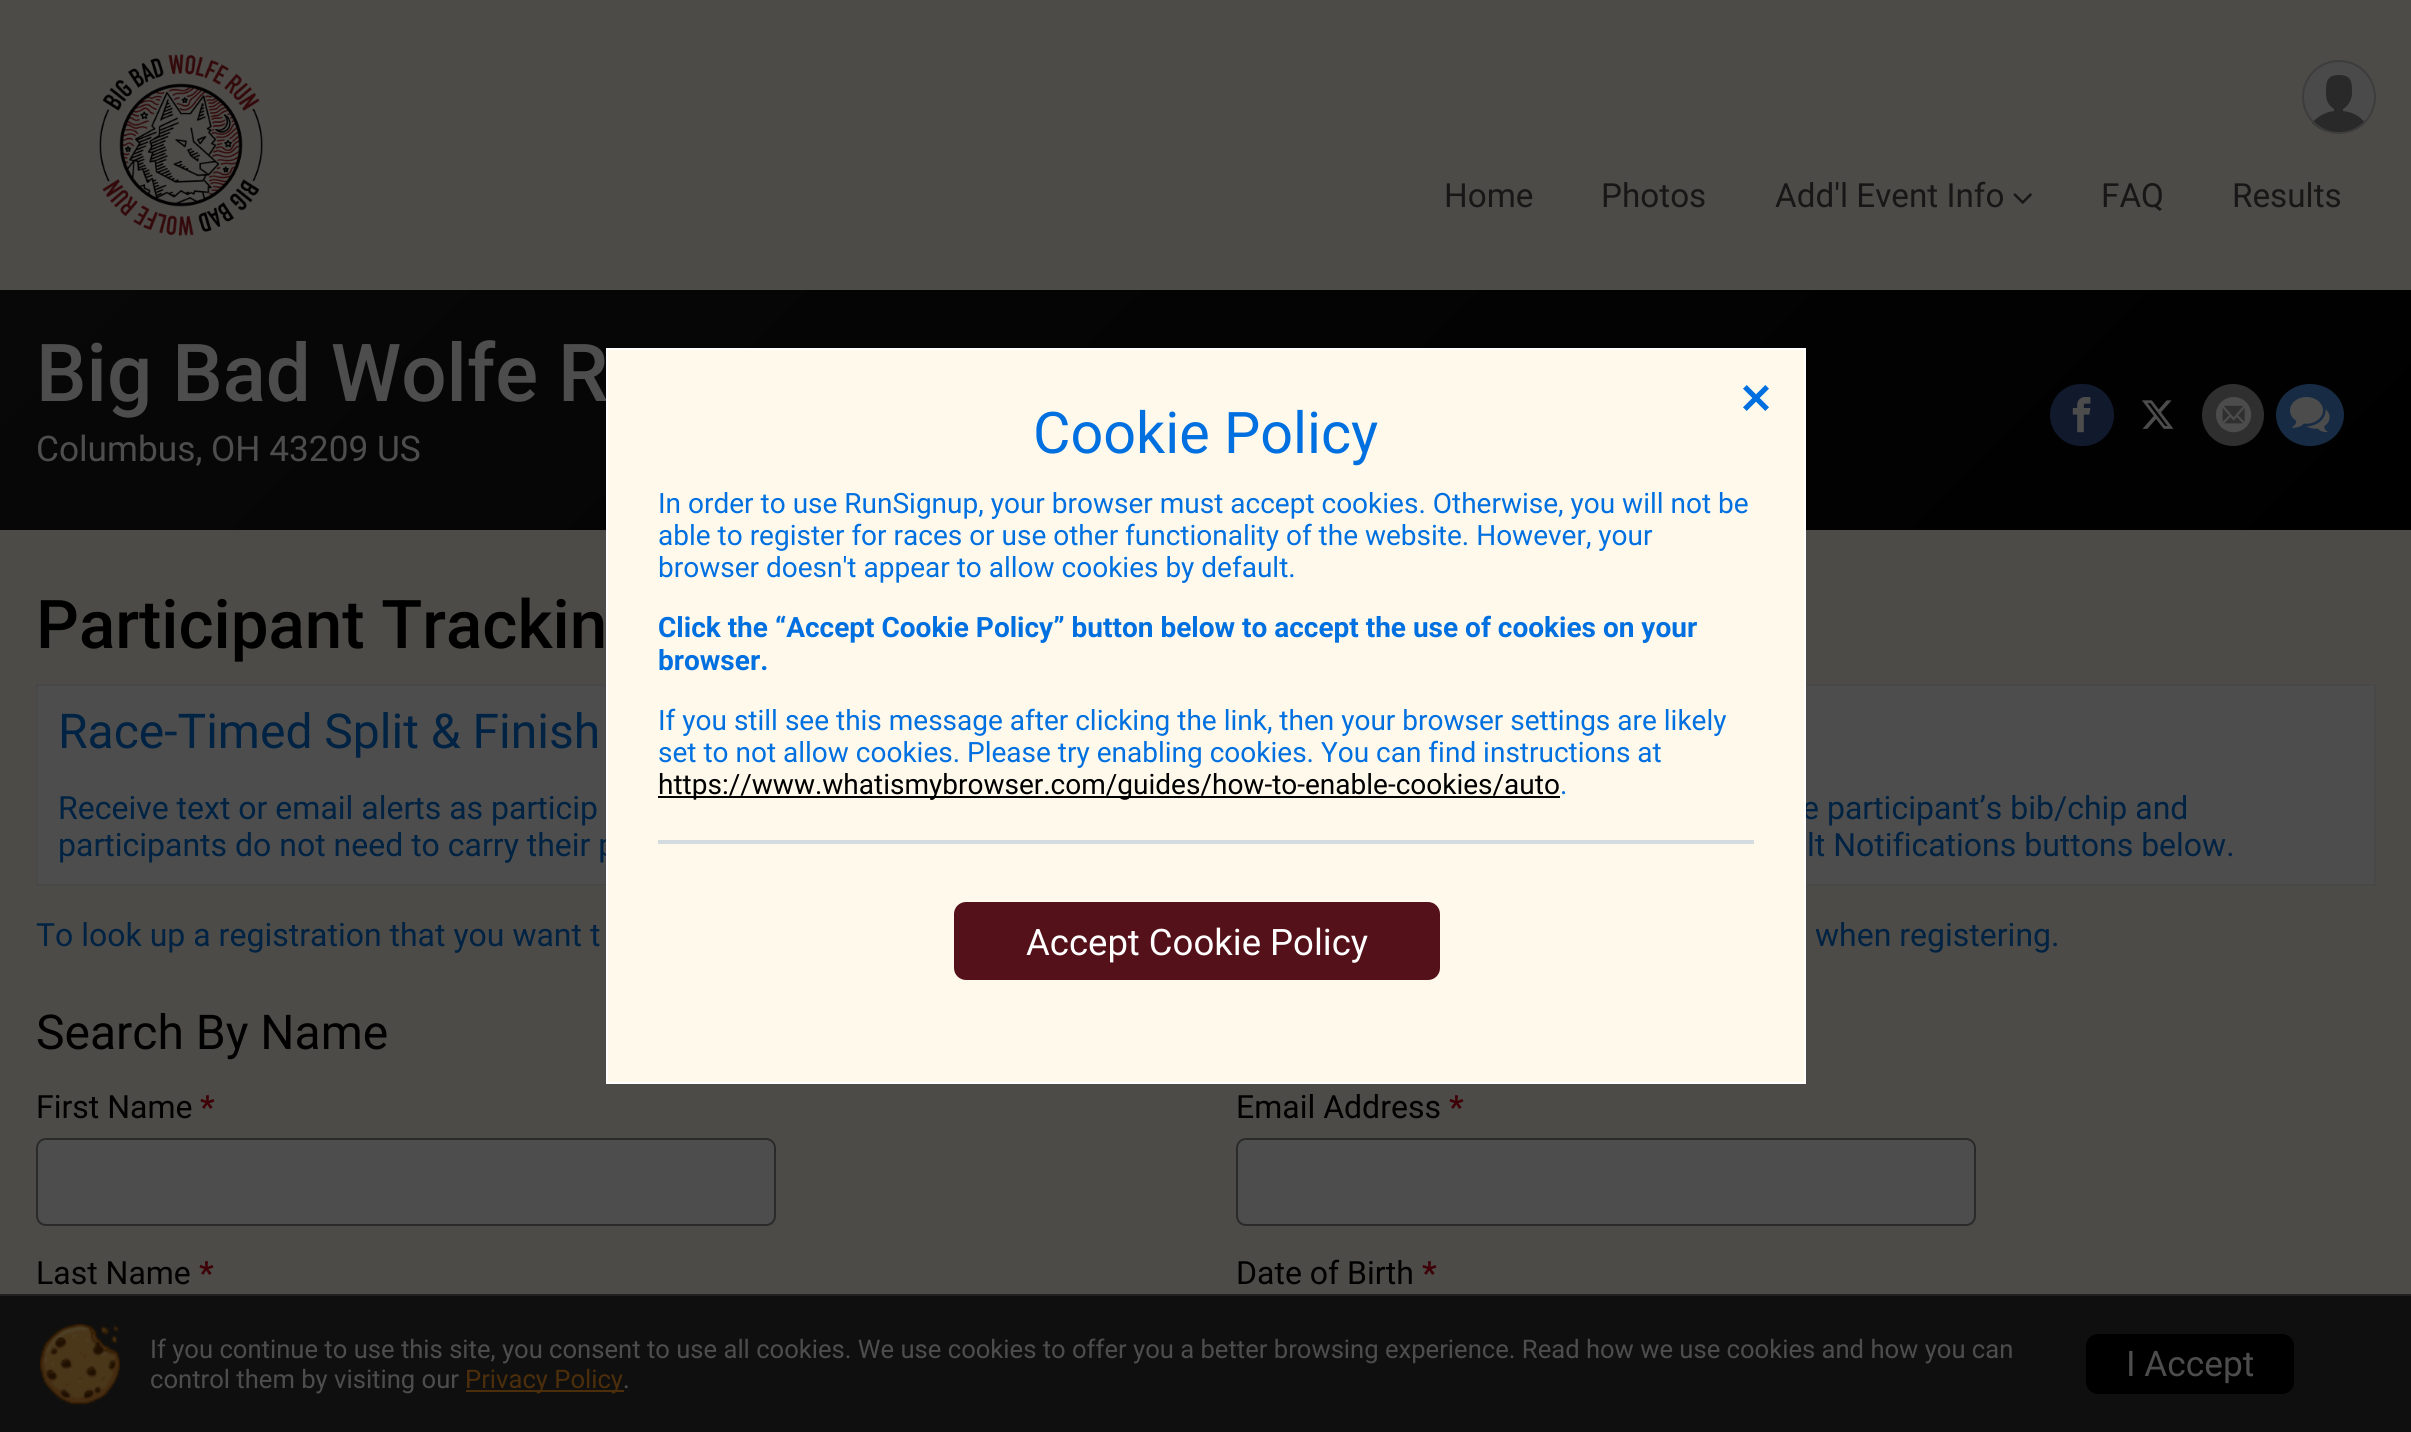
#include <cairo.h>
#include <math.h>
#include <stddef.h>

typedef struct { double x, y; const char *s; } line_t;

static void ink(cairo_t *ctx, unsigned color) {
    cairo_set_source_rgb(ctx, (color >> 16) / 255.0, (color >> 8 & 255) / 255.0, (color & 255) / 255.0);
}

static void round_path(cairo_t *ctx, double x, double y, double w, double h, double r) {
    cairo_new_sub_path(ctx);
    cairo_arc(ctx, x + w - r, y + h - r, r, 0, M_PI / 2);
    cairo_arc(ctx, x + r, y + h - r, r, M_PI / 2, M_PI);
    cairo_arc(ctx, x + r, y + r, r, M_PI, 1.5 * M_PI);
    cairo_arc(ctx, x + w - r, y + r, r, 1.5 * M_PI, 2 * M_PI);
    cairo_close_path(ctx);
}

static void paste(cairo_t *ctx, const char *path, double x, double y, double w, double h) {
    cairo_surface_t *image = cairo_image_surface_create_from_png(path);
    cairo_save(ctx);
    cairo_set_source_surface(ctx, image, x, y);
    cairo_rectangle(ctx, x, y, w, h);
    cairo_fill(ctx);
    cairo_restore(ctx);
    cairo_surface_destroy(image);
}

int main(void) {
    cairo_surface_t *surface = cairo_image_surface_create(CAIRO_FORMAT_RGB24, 2411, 1432);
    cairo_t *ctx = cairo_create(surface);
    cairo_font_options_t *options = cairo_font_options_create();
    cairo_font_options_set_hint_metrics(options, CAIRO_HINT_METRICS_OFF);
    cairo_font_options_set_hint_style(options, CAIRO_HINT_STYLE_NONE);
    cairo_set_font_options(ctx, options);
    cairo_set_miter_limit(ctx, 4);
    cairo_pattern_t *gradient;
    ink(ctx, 0x4D4B47);
    cairo_paint(ctx);
    paste(ctx, "media/1.png", 99, 54, 164, 182);
    cairo_save(ctx);
    round_path(ctx, 2302, 60, 74, 74, 37);
    cairo_clip(ctx);
    ink(ctx, 0x4A4A4A);
    cairo_rectangle(ctx, 2304, 62, 70, 70);
    cairo_fill(ctx);
    cairo_restore(ctx);
    ink(ctx, 0x292929);
    cairo_new_path(ctx);
    cairo_move_to(ctx, 2343, 111);
    cairo_curve_to(ctx, 2353, 112, 2361, 117, 2365, 123);
    cairo_curve_to(ctx, 2361, 127, 2356, 130, 2351, 132);
    cairo_line_to(ctx, 2327, 132);
    cairo_curve_to(ctx, 2321, 130, 2316, 127, 2312, 123);
    cairo_curve_to(ctx, 2317, 117, 2325, 112, 2334, 111);
    cairo_line_to(ctx, 2334, 109);
    cairo_curve_to(ctx, 2330, 106, 2326, 103, 2326, 93);
    cairo_curve_to(ctx, 2326, 83, 2326, 75, 2339, 75);
    cairo_curve_to(ctx, 2352, 75, 2352, 83, 2352, 93);
    cairo_curve_to(ctx, 2352, 100, 2348, 106, 2343, 109);
    cairo_close_path(ctx);
    cairo_fill(ctx);
    cairo_arc(ctx, 2339, 97, 36, 0, 2 * M_PI);
    ink(ctx, 0x3D3D3D);
    cairo_stroke(ctx);
    cairo_select_font_face(ctx, "Roboto", CAIRO_FONT_SLANT_NORMAL, CAIRO_FONT_WEIGHT_NORMAL);
    cairo_set_font_size(ctx, 33.25);
    ink(ctx, 0x171717);
    {
        static const line_t items[] = {
            {1444, 207, "Home"},
            {1601, 207, "Photos"},
            {1775, 207, "Add'l Event Info"},
        };
        for (size_t i = 0; i < sizeof items / sizeof *items; i++) {
            cairo_move_to(ctx, items[i].x, items[i].y);
            cairo_show_text(ctx, items[i].s);
        }
    }
    paste(ctx, "media/2.png", 2013, 193, 19, 11);
    cairo_move_to(ctx, 2101, 207);
    cairo_show_text(ctx, "FAQ");
    cairo_move_to(ctx, 2232, 207);
    cairo_show_text(ctx, "Results");
    gradient = cairo_pattern_create_linear(1869, 1073, 543, -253);
    cairo_pattern_add_color_stop_rgba(gradient, 0, 0, 0, 0, 1);
    cairo_pattern_add_color_stop_rgba(gradient, 1, 0.031, 0.031, 0.031, 1);
    cairo_set_source(ctx, gradient);
    cairo_pattern_destroy(gradient);
    cairo_rectangle(ctx, 0, 290, 2411, 240);
    cairo_fill(ctx);
    cairo_select_font_face(ctx, "Roboto Medium", CAIRO_FONT_SLANT_NORMAL, CAIRO_FONT_WEIGHT_NORMAL);
    cairo_set_font_size(ctx, 80);
    ink(ctx, 0x4D4D4D);
    cairo_move_to(ctx, 36, 401);
    cairo_show_text(ctx, "Big Bad Wolfe R");
    cairo_select_font_face(ctx, "Roboto", CAIRO_FONT_SLANT_NORMAL, CAIRO_FONT_WEIGHT_NORMAL);
    cairo_set_font_size(ctx, 35.25);
    cairo_move_to(ctx, 36, 461);
    cairo_show_text(ctx, "Columbus, OH 43209 US");
    ink(ctx, 0x11192D);
    round_path(ctx, 2050, 384, 64, 62, 31);
    cairo_fill(ctx);
    paste(ctx, "media/3.png", 2072, 397, 19, 36);
    paste(ctx, "media/4.png", 2142, 400, 32, 29);
    ink(ctx, 0x2F2F2F);
    cairo_arc(ctx, 2233, 415, 31, 0, 2 * M_PI);
    cairo_fill(ctx);
    paste(ctx, "media/5.png", 2216, 397, 36, 36);
    ink(ctx, 0x172C44);
    cairo_new_path(ctx);
    cairo_move_to(ctx, 2310, 384);
    cairo_curve_to(ctx, 2329, 384, 2344, 398, 2344, 415);
    cairo_curve_to(ctx, 2344, 432, 2329, 446, 2310, 446);
    cairo_curve_to(ctx, 2291, 446, 2276, 432, 2276, 415);
    cairo_curve_to(ctx, 2276, 398, 2291, 384, 2310, 384);
    cairo_close_path(ctx);
    cairo_fill(ctx);
    paste(ctx, "media/6.png", 2290, 397, 40, 36);
    cairo_select_font_face(ctx, "Roboto Medium", CAIRO_FONT_SLANT_NORMAL, CAIRO_FONT_WEIGHT_NORMAL);
    cairo_set_font_size(ctx, 67.25);
    ink(ctx, 0x000000);
    cairo_move_to(ctx, 36, 648);
    cairo_show_text(ctx, "Participant Trackin");
    ink(ctx, 0x4D4D4D);
    cairo_rectangle(ctx, 37, 685, 2338, 200);
    cairo_fill_preserve(ctx);
    ink(ctx, 0x484848);
    cairo_stroke(ctx);
    cairo_select_font_face(ctx, "Roboto", CAIRO_FONT_SLANT_NORMAL, CAIRO_FONT_WEIGHT_NORMAL);
    cairo_set_font_size(ctx, 48);
    ink(ctx, 0x002243);
    cairo_move_to(ctx, 58, 748);
    cairo_show_text(ctx, "Race-Timed Split & Finish");
    cairo_set_font_size(ctx, 32);
    {
        static const line_t items[] = {
            {58, 819, "Receive text or email alerts as particip"},
            {1802, 819, "e participant’s bib/chip and"},
            {58, 856, "participants do not need to carry their p"},
            {1807, 856, "lt Notifications buttons below."},
            {36, 946, "To look up a registration that you want t"},
            {1815, 946, "when registering."},
        };
        for (size_t i = 0; i < sizeof items / sizeof *items; i++) {
            cairo_move_to(ctx, items[i].x, items[i].y);
            cairo_show_text(ctx, items[i].s);
        }
    }
    cairo_set_font_size(ctx, 48);
    ink(ctx, 0x000000);
    cairo_move_to(ctx, 36, 1049);
    cairo_show_text(ctx, "Search By Name");
    cairo_set_font_size(ctx, 32);
    cairo_move_to(ctx, 36, 1118);
    cairo_show_text(ctx, "First Name");
    cairo_select_font_face(ctx, "Roboto", CAIRO_FONT_SLANT_NORMAL, CAIRO_FONT_WEIGHT_BOLD);
    ink(ctx, 0x3E0108);
    cairo_move_to(ctx, 200, 1118);
    cairo_show_text(ctx, "*");
    ink(ctx, 0x4D4D4D);
    round_path(ctx, 37, 1139, 738, 86, 9);
    cairo_fill_preserve(ctx);
    ink(ctx, 0x2A2A2A);
    cairo_stroke(ctx);
    cairo_select_font_face(ctx, "Roboto", CAIRO_FONT_SLANT_NORMAL, CAIRO_FONT_WEIGHT_NORMAL);
    ink(ctx, 0x000000);
    cairo_move_to(ctx, 36, 1284);
    cairo_show_text(ctx, "Last Name");
    cairo_select_font_face(ctx, "Roboto", CAIRO_FONT_SLANT_NORMAL, CAIRO_FONT_WEIGHT_BOLD);
    ink(ctx, 0x3E0108);
    cairo_move_to(ctx, 199, 1284);
    cairo_show_text(ctx, "*");
    cairo_select_font_face(ctx, "Roboto", CAIRO_FONT_SLANT_NORMAL, CAIRO_FONT_WEIGHT_NORMAL);
    ink(ctx, 0x000000);
    cairo_move_to(ctx, 1236, 1118);
    cairo_show_text(ctx, "Email Address");
    cairo_select_font_face(ctx, "Roboto", CAIRO_FONT_SLANT_NORMAL, CAIRO_FONT_WEIGHT_BOLD);
    ink(ctx, 0x3E0108);
    cairo_move_to(ctx, 1449, 1118);
    cairo_show_text(ctx, "*");
    ink(ctx, 0x4D4D4D);
    round_path(ctx, 1237, 1139, 738, 86, 9);
    cairo_fill_preserve(ctx);
    ink(ctx, 0x2A2A2A);
    cairo_stroke(ctx);
    cairo_select_font_face(ctx, "Roboto", CAIRO_FONT_SLANT_NORMAL, CAIRO_FONT_WEIGHT_NORMAL);
    ink(ctx, 0x000000);
    cairo_move_to(ctx, 1236, 1284);
    cairo_show_text(ctx, "Date of Birth");
    cairo_select_font_face(ctx, "Roboto", CAIRO_FONT_SLANT_NORMAL, CAIRO_FONT_WEIGHT_BOLD);
    ink(ctx, 0x3E0108);
    cairo_move_to(ctx, 1422, 1284);
    cairo_show_text(ctx, "*");
    cairo_rectangle(ctx, 607, 349, 1198, 734);
    ink(ctx, 0xFFFFFF);
    cairo_stroke(ctx);
    ink(ctx, 0xFFF9EB);
    cairo_rectangle(ctx, 608, 350, 1196, 732);
    cairo_fill(ctx);
    paste(ctx, "media/7.png", 1743, 385, 26, 26);
    cairo_select_font_face(ctx, "Roboto", CAIRO_FONT_SLANT_NORMAL, CAIRO_FONT_WEIGHT_NORMAL);
    cairo_set_font_size(ctx, 57.5);
    ink(ctx, 0x0070E0);
    cairo_move_to(ctx, 1033, 453);
    cairo_show_text(ctx, "Cookie Policy");
    cairo_set_font_size(ctx, 28);
    {
        static const line_t items[] = {
            {658, 513, "In order to use RunSignup, your browser must accept cookies. Otherwise, you will not be"},
            {658, 545, "able to register for races or use other functionality of the website. However, your"},
            {658, 577, "browser doesn't appear to allow cookies by default."},
        };
        for (size_t i = 0; i < sizeof items / sizeof *items; i++) {
            cairo_move_to(ctx, items[i].x, items[i].y);
            cairo_show_text(ctx, items[i].s);
        }
    }
    cairo_select_font_face(ctx, "Roboto", CAIRO_FONT_SLANT_NORMAL, CAIRO_FONT_WEIGHT_BOLD);
    cairo_move_to(ctx, 658, 637);
    cairo_show_text(ctx, "Click the “Accept Cookie Policy” button below to accept the use of cookies on your");
    cairo_move_to(ctx, 658, 670);
    cairo_show_text(ctx, "browser.");
    cairo_select_font_face(ctx, "Roboto", CAIRO_FONT_SLANT_NORMAL, CAIRO_FONT_WEIGHT_NORMAL);
    cairo_move_to(ctx, 658, 730);
    cairo_show_text(ctx, "If you still see this message after clicking the link, then your browser settings are likely");
    cairo_move_to(ctx, 658, 762);
    cairo_show_text(ctx, "set to not allow cookies. Please try enabling cookies. You can find instructions at");
    ink(ctx, 0x000000);
    cairo_rectangle(ctx, 658, 796, 902, 2);
    cairo_fill(ctx);
    cairo_move_to(ctx, 658, 794);
    cairo_show_text(ctx, "https://www.whatismybrowser.com/guides/how-to-enable-cookies/auto");
    ink(ctx, 0x0070E0);
    cairo_move_to(ctx, 1560, 794);
    cairo_show_text(ctx, ".");
    ink(ctx, 0xD3DBDF);
    cairo_rectangle(ctx, 658, 840, 1096, 4);
    cairo_fill(ctx);
    ink(ctx, 0x541119);
    round_path(ctx, 954, 902, 486, 78, 12);
    cairo_fill(ctx);
    cairo_set_font_size(ctx, 36.5);
    ink(ctx, 0xFFFFFF);
    cairo_move_to(ctx, 1026, 955);
    cairo_show_text(ctx, "Accept Cookie Policy");
    ink(ctx, 0x0F0F0F);
    cairo_rectangle(ctx, 0, 1296, 2411, 136);
    cairo_fill(ctx);
    ink(ctx, 0x1F1F1F);
    cairo_rectangle(ctx, 0, 1294, 2411, 2);
    cairo_fill(ctx);
    paste(ctx, "media/8.png", 40, 1324, 80, 81);
    cairo_set_font_size(ctx, 25.6);
    ink(ctx, 0x4D4D4D);
    cairo_move_to(ctx, 150, 1358);
    cairo_show_text(ctx, "If you continue to use this site, you consent to use all cookies. We use cookies to offer you a better browsing experience. Read how we use cookies and how you can");
    cairo_move_to(ctx, 150, 1388);
    cairo_show_text(ctx, "control them by visiting our");
    ink(ctx, 0x4C2E0B);
    cairo_rectangle(ctx, 466, 1390, 158, 2);
    cairo_fill(ctx);
    cairo_move_to(ctx, 465, 1388);
    cairo_show_text(ctx, "Privacy Policy");
    ink(ctx, 0x4D4D4D);
    cairo_move_to(ctx, 623, 1388);
    cairo_show_text(ctx, ".");
    ink(ctx, 0x000000);
    round_path(ctx, 2086, 1334, 208, 60, 12);
    cairo_fill(ctx);
    cairo_set_font_size(ctx, 35.25);
    ink(ctx, 0x4D4D4D);
    cairo_move_to(ctx, 2126, 1376);
    cairo_show_text(ctx, "I Accept");
    cairo_surface_write_to_png(surface, "image.png");
    cairo_font_options_destroy(options);
    cairo_destroy(ctx);
    cairo_surface_destroy(surface);
    return 0;
}
